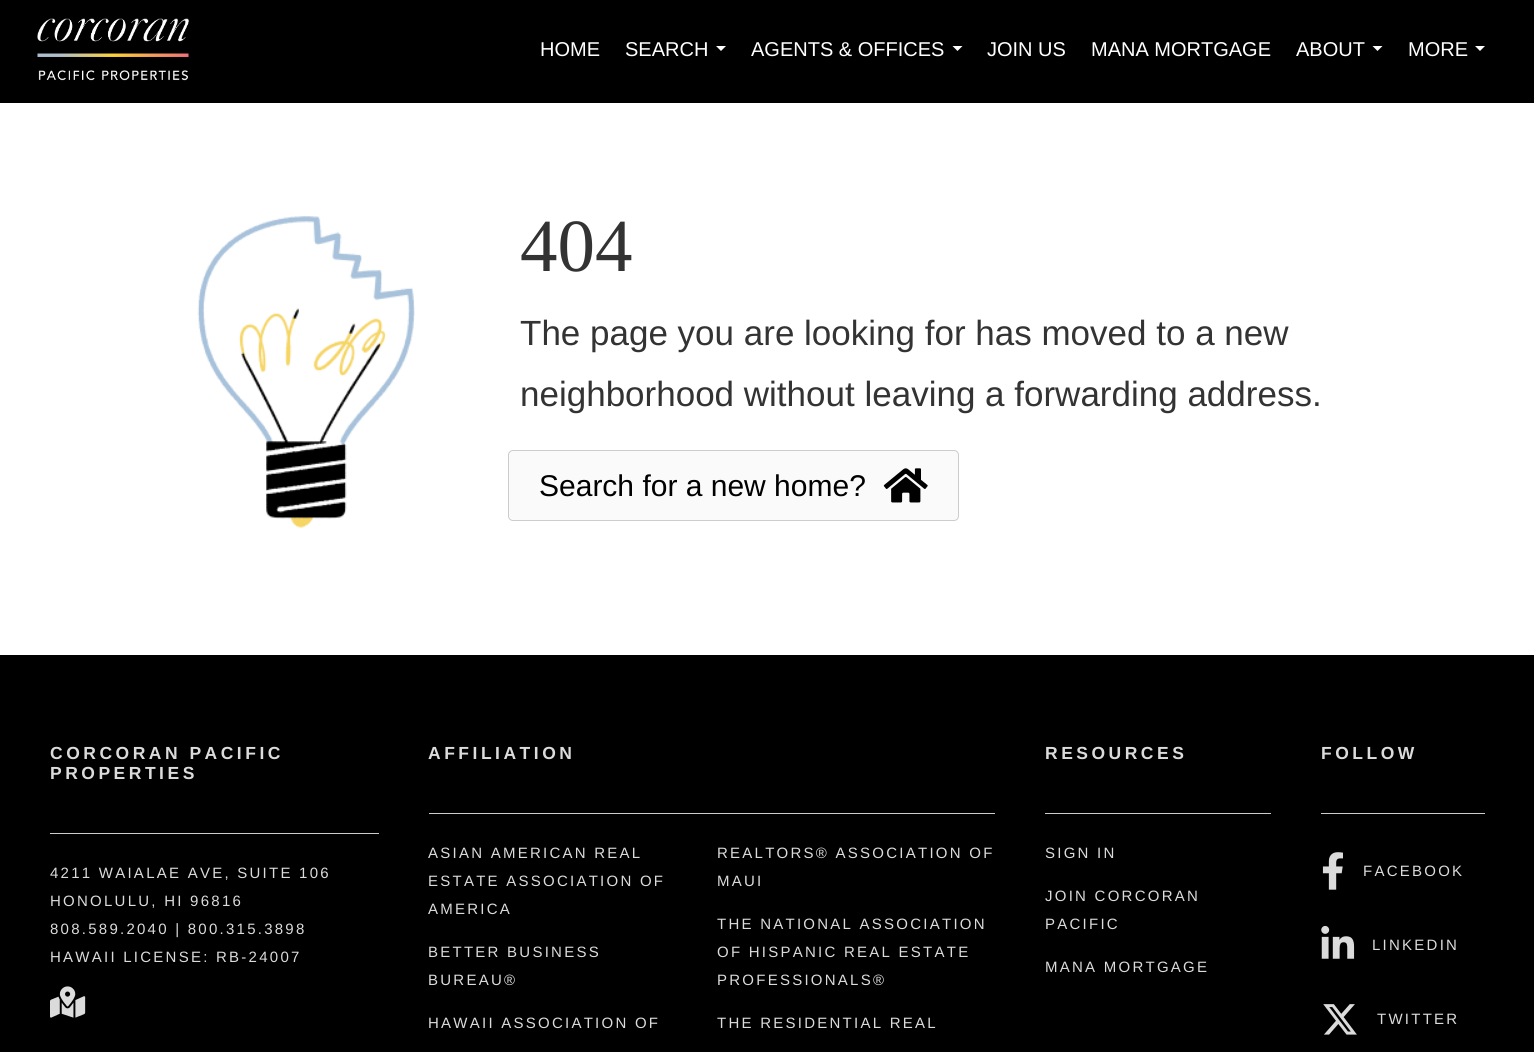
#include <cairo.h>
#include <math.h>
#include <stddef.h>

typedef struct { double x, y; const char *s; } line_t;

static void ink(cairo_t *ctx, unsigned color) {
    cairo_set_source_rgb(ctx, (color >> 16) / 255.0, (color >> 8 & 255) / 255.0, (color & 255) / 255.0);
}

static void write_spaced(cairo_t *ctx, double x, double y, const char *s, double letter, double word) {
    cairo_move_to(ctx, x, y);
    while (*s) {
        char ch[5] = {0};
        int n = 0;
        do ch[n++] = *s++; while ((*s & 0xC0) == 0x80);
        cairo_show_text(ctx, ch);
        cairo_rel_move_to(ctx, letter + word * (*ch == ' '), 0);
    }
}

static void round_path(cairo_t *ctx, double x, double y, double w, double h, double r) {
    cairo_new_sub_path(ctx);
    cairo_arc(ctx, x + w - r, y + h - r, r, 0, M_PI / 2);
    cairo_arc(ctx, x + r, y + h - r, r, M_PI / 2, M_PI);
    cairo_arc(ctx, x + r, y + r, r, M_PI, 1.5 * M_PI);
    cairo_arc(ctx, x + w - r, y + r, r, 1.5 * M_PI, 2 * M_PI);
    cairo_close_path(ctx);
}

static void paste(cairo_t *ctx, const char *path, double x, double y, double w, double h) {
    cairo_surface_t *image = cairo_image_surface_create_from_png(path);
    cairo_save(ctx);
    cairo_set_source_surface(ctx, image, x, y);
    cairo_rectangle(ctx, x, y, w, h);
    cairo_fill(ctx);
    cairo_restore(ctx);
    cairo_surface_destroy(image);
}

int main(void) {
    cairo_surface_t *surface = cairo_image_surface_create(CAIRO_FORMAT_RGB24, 1534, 1052);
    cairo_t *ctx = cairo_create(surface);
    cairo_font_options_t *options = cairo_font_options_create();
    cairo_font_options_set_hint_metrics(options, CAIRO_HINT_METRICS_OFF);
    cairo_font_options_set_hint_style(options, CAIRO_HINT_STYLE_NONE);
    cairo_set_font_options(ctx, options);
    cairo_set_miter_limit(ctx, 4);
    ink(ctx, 0xFFFFFF);
    cairo_paint(ctx);
    ink(ctx, 0x000000);
    cairo_rectangle(ctx, 0, 0, 1534, 103);
    cairo_fill(ctx);
    paste(ctx, "media/1.png", 37, 18, 152, 63);
    cairo_select_font_face(ctx, "Liberation Sans", CAIRO_FONT_SLANT_NORMAL, CAIRO_FONT_WEIGHT_NORMAL);
    cairo_set_font_size(ctx, 20);
    ink(ctx, 0xFFFFFF);
    cairo_move_to(ctx, 540, 56);
    cairo_show_text(ctx, "HOME");
    cairo_move_to(ctx, 625, 56);
    cairo_show_text(ctx, "SEARCH");
    cairo_new_path(ctx);
    cairo_move_to(ctx, 716, 46);
    cairo_line_to(ctx, 726, 46);
    cairo_line_to(ctx, 721, 51);
    cairo_close_path(ctx);
    cairo_fill(ctx);
    cairo_move_to(ctx, 751, 56);
    cairo_show_text(ctx, "AGENTS & OFFICES");
    cairo_new_path(ctx);
    cairo_move_to(ctx, 952.5, 46);
    cairo_line_to(ctx, 962.5, 46);
    cairo_line_to(ctx, 957.5, 51);
    cairo_close_path(ctx);
    cairo_fill(ctx);
    {
        static const line_t items[] = {
            {987, 56, "JOIN US"},
            {1091, 56, "MANA MORTGAGE"},
            {1296, 56, "ABOUT"},
        };
        for (size_t i = 0; i < sizeof items / sizeof *items; i++) {
            cairo_move_to(ctx, items[i].x, items[i].y);
            cairo_show_text(ctx, items[i].s);
        }
    }
    cairo_new_path(ctx);
    cairo_move_to(ctx, 1372.5, 46);
    cairo_line_to(ctx, 1382.5, 46);
    cairo_line_to(ctx, 1377.5, 51);
    cairo_close_path(ctx);
    cairo_fill(ctx);
    cairo_move_to(ctx, 1408, 56);
    cairo_show_text(ctx, "MORE");
    cairo_new_path(ctx);
    cairo_move_to(ctx, 1475, 46);
    cairo_line_to(ctx, 1485, 46);
    cairo_line_to(ctx, 1480, 51);
    cairo_close_path(ctx);
    cairo_fill(ctx);
    paste(ctx, "media/2.png", 197, 216, 218, 312);
    cairo_select_font_face(ctx, "Liberation Serif", CAIRO_FONT_SLANT_NORMAL, CAIRO_FONT_WEIGHT_NORMAL);
    cairo_set_font_size(ctx, 75);
    ink(ctx, 0x333333);
    cairo_move_to(ctx, 520, 271);
    cairo_show_text(ctx, "404");
    cairo_select_font_face(ctx, "Liberation Sans", CAIRO_FONT_SLANT_NORMAL, CAIRO_FONT_WEIGHT_NORMAL);
    cairo_set_font_size(ctx, 35);
    cairo_move_to(ctx, 520, 345);
    cairo_show_text(ctx, "The page you are looking for has moved to a new");
    cairo_move_to(ctx, 520, 406);
    cairo_show_text(ctx, "neighborhood without leaving a forwarding address.");
    ink(ctx, 0xFAFAFA);
    round_path(ctx, 508.5, 450.5, 450, 70, 4.5);
    cairo_fill_preserve(ctx);
    ink(ctx, 0xCCCCCC);
    cairo_set_line_width(ctx, 1);
    cairo_stroke(ctx);
    cairo_set_font_size(ctx, 30);
    ink(ctx, 0x000000);
    cairo_move_to(ctx, 539, 496);
    cairo_show_text(ctx, "Search for a new home?");
    paste(ctx, "media/3.png", 883, 468, 45, 35);
    cairo_rectangle(ctx, 0, 655, 1534, 397);
    cairo_fill(ctx);
    cairo_select_font_face(ctx, "Liberation Sans", CAIRO_FONT_SLANT_NORMAL, CAIRO_FONT_WEIGHT_BOLD);
    cairo_set_font_size(ctx, 17.5);
    ink(ctx, 0xDBDBDB);
    write_spaced(ctx, 50, 759, "CORCORAN PACIFIC", 3.5, 0);
    write_spaced(ctx, 50, 779, "PROPERTIES", 3.5, 0);
    ink(ctx, 0xCCCCCC);
    cairo_rectangle(ctx, 50, 833, 329, 1);
    cairo_fill(ctx);
    cairo_select_font_face(ctx, "Liberation Sans", CAIRO_FONT_SLANT_NORMAL, CAIRO_FONT_WEIGHT_NORMAL);
    cairo_set_font_size(ctx, 15);
    ink(ctx, 0xDBDBDB);
    {
        static const line_t items[] = {
            {50, 878, "4211 WAIALAE AVE, SUITE 106"},
            {50, 906, "HONOLULU, HI 96816"},
            {50, 934, "808.589.2040 | 800.315.3898"},
            {50, 962, "HAWAII LICENSE: RB-24007"},
        };
        for (size_t i = 0; i < sizeof items / sizeof *items; i++) {
            write_spaced(ctx, items[i].x, items[i].y, items[i].s, 2.25, 0);
        }
    }
    paste(ctx, "media/4.png", 50, 986, 36, 32);
    cairo_select_font_face(ctx, "Liberation Sans", CAIRO_FONT_SLANT_NORMAL, CAIRO_FONT_WEIGHT_BOLD);
    cairo_set_font_size(ctx, 17.5);
    write_spaced(ctx, 428, 759, "AFFILIATION", 3.5, 0);
    ink(ctx, 0xCCCCCC);
    cairo_rectangle(ctx, 429, 813, 566, 1);
    cairo_fill(ctx);
    cairo_select_font_face(ctx, "Liberation Sans", CAIRO_FONT_SLANT_NORMAL, CAIRO_FONT_WEIGHT_NORMAL);
    cairo_set_font_size(ctx, 15);
    ink(ctx, 0xDBDBDB);
    {
        static const line_t items[] = {
            {428, 858, "ASIAN AMERICAN REAL"},
            {428, 886, "ESTATE ASSOCIATION OF"},
            {428, 914, "AMERICA"},
            {428, 957, "BETTER BUSINESS"},
            {428, 985, "BUREAU®"},
            {428, 1028, "HAWAII ASSOCIATION OF"},
            {717, 858, "REALTORS® ASSOCIATION OF"},
            {717, 886, "MAUI"},
            {717, 929, "THE NATIONAL ASSOCIATION"},
            {717, 957, "OF HISPANIC REAL ESTATE"},
            {717, 985, "PROFESSIONALS®"},
            {717, 1028, "THE RESIDENTIAL REAL"},
        };
        for (size_t i = 0; i < sizeof items / sizeof *items; i++) {
            write_spaced(ctx, items[i].x, items[i].y, items[i].s, 2.25, 0);
        }
    }
    cairo_select_font_face(ctx, "Liberation Sans", CAIRO_FONT_SLANT_NORMAL, CAIRO_FONT_WEIGHT_BOLD);
    cairo_set_font_size(ctx, 17.5);
    write_spaced(ctx, 1045, 759, "RESOURCES", 3.5, 0);
    ink(ctx, 0xCCCCCC);
    cairo_rectangle(ctx, 1045, 813, 226, 1);
    cairo_fill(ctx);
    cairo_select_font_face(ctx, "Liberation Sans", CAIRO_FONT_SLANT_NORMAL, CAIRO_FONT_WEIGHT_NORMAL);
    cairo_set_font_size(ctx, 15);
    ink(ctx, 0xDBDBDB);
    {
        static const line_t items[] = {
            {1045, 858, "SIGN IN"},
            {1045, 901, "JOIN CORCORAN"},
            {1045, 929, "PACIFIC"},
            {1045, 972, "MANA MORTGAGE"},
        };
        for (size_t i = 0; i < sizeof items / sizeof *items; i++) {
            write_spaced(ctx, items[i].x, items[i].y, items[i].s, 2.25, 0);
        }
    }
    cairo_select_font_face(ctx, "Liberation Sans", CAIRO_FONT_SLANT_NORMAL, CAIRO_FONT_WEIGHT_BOLD);
    cairo_set_font_size(ctx, 17.5);
    write_spaced(ctx, 1321, 759, "FOLLOW", 3.5, 0);
    ink(ctx, 0xCCCCCC);
    cairo_rectangle(ctx, 1321, 813, 164, 1);
    cairo_fill(ctx);
    paste(ctx, "media/5.png", 1322, 852, 21, 38);
    cairo_select_font_face(ctx, "Liberation Sans", CAIRO_FONT_SLANT_NORMAL, CAIRO_FONT_WEIGHT_NORMAL);
    cairo_set_font_size(ctx, 15);
    ink(ctx, 0xDBDBDB);
    write_spaced(ctx, 1363, 876, "FACEBOOK", 2.25, 0);
    paste(ctx, "media/6.png", 1321, 925, 34, 34);
    write_spaced(ctx, 1372, 950, "LINKEDIN", 2.25, 0);
    paste(ctx, "media/7.png", 1323, 1004, 34, 31);
    write_spaced(ctx, 1377, 1024, "TWITTER", 2.25, 0);
    cairo_surface_write_to_png(surface, "image.png");
    cairo_font_options_destroy(options);
    cairo_destroy(ctx);
    cairo_surface_destroy(surface);
    return 0;
}
